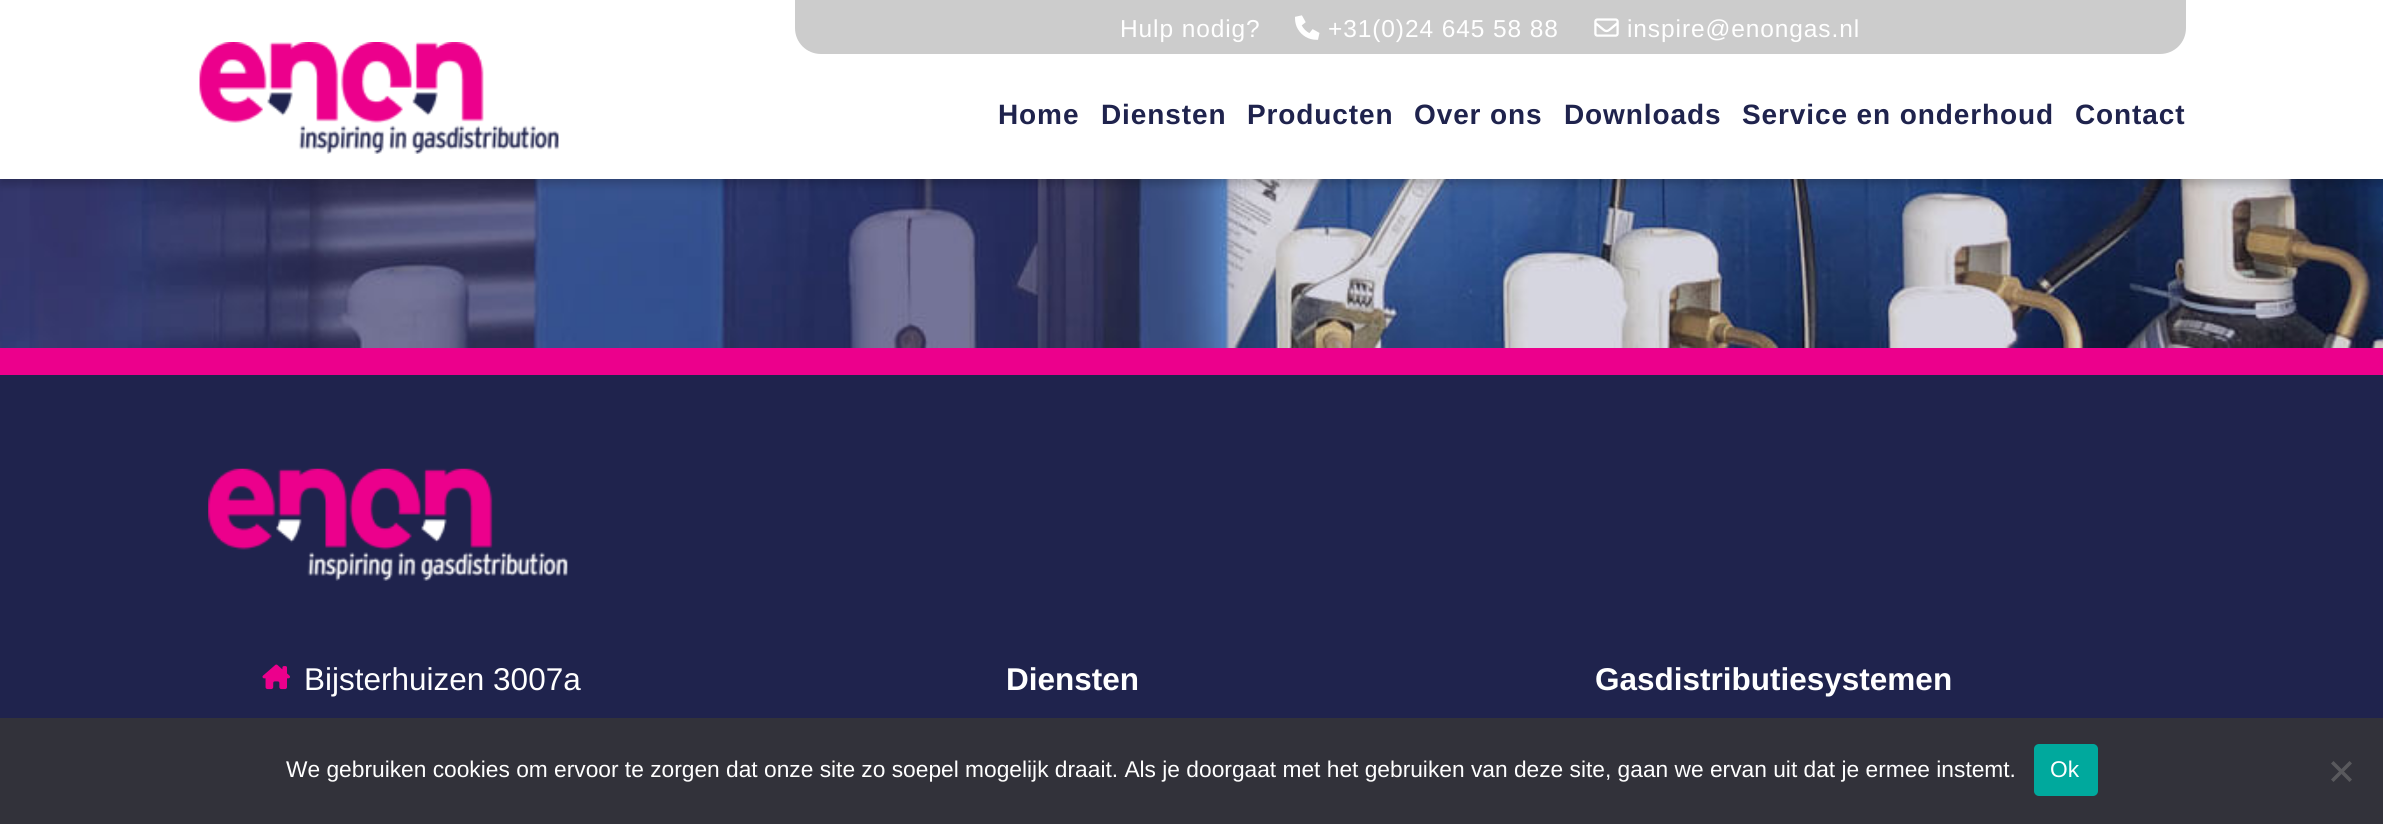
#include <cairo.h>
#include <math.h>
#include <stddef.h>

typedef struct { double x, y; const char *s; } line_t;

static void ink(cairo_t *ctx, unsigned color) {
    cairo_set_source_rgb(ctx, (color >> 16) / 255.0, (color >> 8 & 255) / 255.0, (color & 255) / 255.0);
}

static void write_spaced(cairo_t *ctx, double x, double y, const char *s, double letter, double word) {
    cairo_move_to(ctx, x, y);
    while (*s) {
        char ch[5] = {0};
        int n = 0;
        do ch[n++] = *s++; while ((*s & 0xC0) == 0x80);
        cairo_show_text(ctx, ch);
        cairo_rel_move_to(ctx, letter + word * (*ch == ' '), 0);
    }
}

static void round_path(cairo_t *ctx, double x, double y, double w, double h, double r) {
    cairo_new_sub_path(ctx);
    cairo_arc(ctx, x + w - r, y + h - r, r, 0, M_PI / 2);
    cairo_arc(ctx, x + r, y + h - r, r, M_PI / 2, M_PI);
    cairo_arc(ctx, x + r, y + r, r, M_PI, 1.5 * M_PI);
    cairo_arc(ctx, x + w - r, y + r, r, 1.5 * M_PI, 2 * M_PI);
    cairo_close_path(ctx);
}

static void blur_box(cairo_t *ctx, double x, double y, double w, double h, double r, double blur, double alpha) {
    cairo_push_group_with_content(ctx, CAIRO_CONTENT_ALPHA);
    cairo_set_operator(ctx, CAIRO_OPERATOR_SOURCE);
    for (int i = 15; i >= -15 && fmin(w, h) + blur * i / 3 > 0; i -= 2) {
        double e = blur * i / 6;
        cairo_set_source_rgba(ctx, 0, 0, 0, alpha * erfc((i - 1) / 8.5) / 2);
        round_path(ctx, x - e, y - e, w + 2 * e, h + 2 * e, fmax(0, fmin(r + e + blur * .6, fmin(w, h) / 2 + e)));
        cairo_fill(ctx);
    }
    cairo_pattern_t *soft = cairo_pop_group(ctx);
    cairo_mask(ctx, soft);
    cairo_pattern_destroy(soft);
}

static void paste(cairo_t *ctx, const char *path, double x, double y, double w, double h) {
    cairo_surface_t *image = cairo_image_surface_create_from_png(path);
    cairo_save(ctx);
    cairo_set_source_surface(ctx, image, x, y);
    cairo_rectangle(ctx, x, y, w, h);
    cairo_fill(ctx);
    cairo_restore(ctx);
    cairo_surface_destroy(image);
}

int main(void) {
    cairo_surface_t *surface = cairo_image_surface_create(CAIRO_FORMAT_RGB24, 2383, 824);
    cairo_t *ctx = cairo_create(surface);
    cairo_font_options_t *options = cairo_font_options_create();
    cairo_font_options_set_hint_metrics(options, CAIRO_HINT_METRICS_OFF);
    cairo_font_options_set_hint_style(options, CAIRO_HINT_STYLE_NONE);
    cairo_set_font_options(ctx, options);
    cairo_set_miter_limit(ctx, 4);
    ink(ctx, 0xFFFFFF);
    cairo_paint(ctx);
    paste(ctx, "media/4.png", 0, 179, 2383, 169);
    ink(ctx, 0x000000);
    blur_box(ctx, 0, 5, 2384, 179, 0, 4.5, 0.2);
    ink(ctx, 0xFFFFFF);
    cairo_rectangle(ctx, 0, 0, 2383, 179);
    cairo_fill(ctx);
    paste(ctx, "media/1.png", 199, 42, 360, 112);
    ink(ctx, 0xCCCCCC);
    cairo_new_path(ctx);
    cairo_move_to(ctx, 795, 0);
    cairo_line_to(ctx, 2186, 0);
    cairo_line_to(ctx, 2186, 28);
    cairo_curve_to(ctx, 2186, 42.5, 2174.5, 54, 2160, 54);
    cairo_line_to(ctx, 821, 54);
    cairo_curve_to(ctx, 806.5, 54, 795, 42.5, 795, 28);
    cairo_close_path(ctx);
    cairo_fill(ctx);
    cairo_select_font_face(ctx, "Liberation Sans", CAIRO_FONT_SLANT_NORMAL, CAIRO_FONT_WEIGHT_NORMAL);
    cairo_set_font_size(ctx, 24.5);
    ink(ctx, 0xFFFFFF);
    write_spaced(ctx, 1120, 37, "Hulp nodig?", 0.9, 0);
    paste(ctx, "media/2.png", 1295, 15, 25, 25);
    write_spaced(ctx, 1328, 37, "+31(0)24 645 58 88", 0.9, 0);
    paste(ctx, "media/3.png", 1594, 18, 25, 19);
    write_spaced(ctx, 1627, 37, "inspire@enongas.nl", 0.9, 0);
    cairo_select_font_face(ctx, "Liberation Sans", CAIRO_FONT_SLANT_NORMAL, CAIRO_FONT_WEIGHT_BOLD);
    cairo_set_font_size(ctx, 28);
    ink(ctx, 0x1F234D);
    {
        static const line_t items[] = {
            {998, 124, "Home"},
            {1101, 124, "Diensten"},
            {1247, 124, "Producten"},
            {1414, 124, "Over ons"},
            {1564, 124, "Downloads"},
            {1742, 124, "Service en onderhoud"},
            {2075, 124, "Contact"},
        };
        for (size_t i = 0; i < sizeof items / sizeof *items; i++) {
            write_spaced(ctx, items[i].x, items[i].y, items[i].s, 0.9, 0);
        }
    }
    cairo_rectangle(ctx, 0, 375, 2383, 343);
    cairo_fill(ctx);
    ink(ctx, 0xEC008C);
    cairo_rectangle(ctx, 0, 348, 2383, 27);
    cairo_fill(ctx);
    paste(ctx, "media/5.png", 208, 468, 360, 113);
    paste(ctx, "media/6.png", 262, 664, 28, 26);
    cairo_select_font_face(ctx, "Liberation Sans", CAIRO_FONT_SLANT_NORMAL, CAIRO_FONT_WEIGHT_NORMAL);
    cairo_set_font_size(ctx, 31.5);
    ink(ctx, 0xFFFFFF);
    cairo_move_to(ctx, 304, 690);
    cairo_show_text(ctx, "Bijsterhuizen 3007a");
    cairo_select_font_face(ctx, "Liberation Sans", CAIRO_FONT_SLANT_NORMAL, CAIRO_FONT_WEIGHT_BOLD);
    cairo_move_to(ctx, 1006, 690);
    cairo_show_text(ctx, "Diensten");
    cairo_move_to(ctx, 1595, 690);
    cairo_show_text(ctx, "Gasdistributiesystemen");
    ink(ctx, 0x32323A);
    cairo_rectangle(ctx, 0, 718, 2383, 106);
    cairo_fill(ctx);
    cairo_select_font_face(ctx, "Liberation Sans", CAIRO_FONT_SLANT_NORMAL, CAIRO_FONT_WEIGHT_NORMAL);
    cairo_set_font_size(ctx, 22.75);
    ink(ctx, 0xFFFFFF);
    cairo_move_to(ctx, 286, 777);
    cairo_show_text(ctx, "We gebruiken cookies om ervoor te zorgen dat onze site zo soepel mogelijk draait. Als je doorgaat met het gebruiken van deze site, gaan we ervan uit dat je ermee instemt.");
    ink(ctx, 0x00A99D);
    round_path(ctx, 2034, 744, 64, 52, 5);
    cairo_fill(ctx);
    ink(ctx, 0xFFFFFF);
    cairo_move_to(ctx, 2050, 777);
    cairo_show_text(ctx, "Ok");
    ink(ctx, 0x59595D);
    cairo_new_path(ctx);
    cairo_move_to(ctx, 2349.5, 761);
    cairo_line_to(ctx, 2352, 763.5);
    cairo_line_to(ctx, 2333.5, 782);
    cairo_line_to(ctx, 2331, 779.5);
    cairo_close_path(ctx);
    cairo_fill(ctx);
    cairo_new_path(ctx);
    cairo_move_to(ctx, 2331, 763.5);
    cairo_line_to(ctx, 2333.5, 761);
    cairo_line_to(ctx, 2352, 779.5);
    cairo_line_to(ctx, 2349.5, 782);
    cairo_close_path(ctx);
    cairo_fill(ctx);
    cairo_surface_write_to_png(surface, "image.png");
    cairo_font_options_destroy(options);
    cairo_destroy(ctx);
    cairo_surface_destroy(surface);
    return 0;
}
